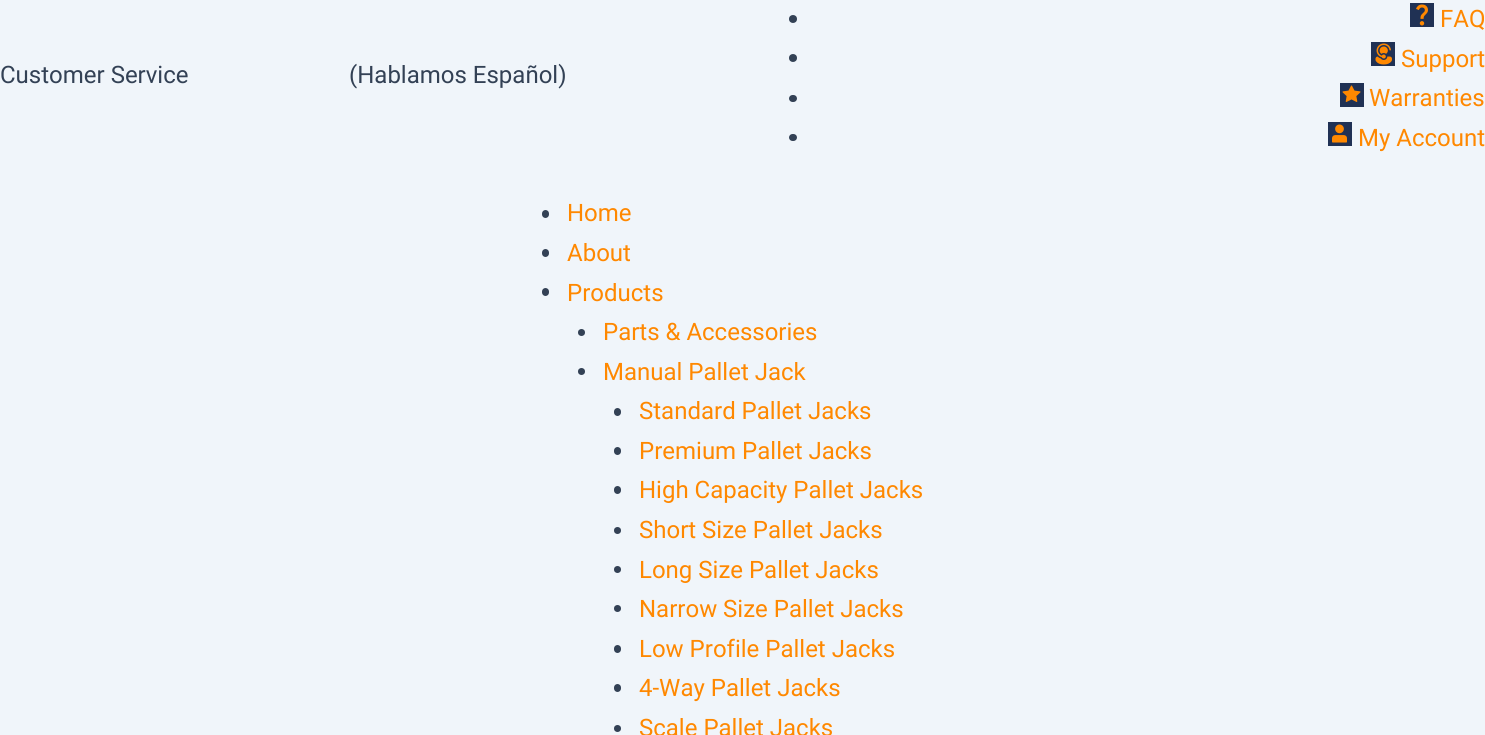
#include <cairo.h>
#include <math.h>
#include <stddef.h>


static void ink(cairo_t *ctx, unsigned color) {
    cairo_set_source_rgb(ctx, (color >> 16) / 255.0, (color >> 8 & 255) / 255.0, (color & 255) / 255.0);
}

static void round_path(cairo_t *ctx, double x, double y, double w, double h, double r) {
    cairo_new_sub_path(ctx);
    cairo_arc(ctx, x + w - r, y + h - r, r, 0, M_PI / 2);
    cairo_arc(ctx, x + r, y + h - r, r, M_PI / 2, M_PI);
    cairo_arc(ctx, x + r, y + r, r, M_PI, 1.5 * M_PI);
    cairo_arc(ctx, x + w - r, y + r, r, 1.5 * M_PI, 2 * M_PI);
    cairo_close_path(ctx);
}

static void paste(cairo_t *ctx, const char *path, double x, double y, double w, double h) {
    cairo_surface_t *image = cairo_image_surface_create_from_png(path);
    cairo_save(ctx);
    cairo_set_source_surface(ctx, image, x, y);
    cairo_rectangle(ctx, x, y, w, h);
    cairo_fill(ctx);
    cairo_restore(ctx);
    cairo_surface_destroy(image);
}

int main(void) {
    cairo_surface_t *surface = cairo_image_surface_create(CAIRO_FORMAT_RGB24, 1485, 735);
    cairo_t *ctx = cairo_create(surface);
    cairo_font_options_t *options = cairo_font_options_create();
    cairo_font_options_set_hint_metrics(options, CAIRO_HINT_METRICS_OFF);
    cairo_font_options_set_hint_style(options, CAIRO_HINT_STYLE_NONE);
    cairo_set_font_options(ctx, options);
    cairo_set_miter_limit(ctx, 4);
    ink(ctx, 0xF0F5FA);
    cairo_paint(ctx);
    cairo_select_font_face(ctx, "Roboto", CAIRO_FONT_SLANT_NORMAL, CAIRO_FONT_WEIGHT_NORMAL);
    cairo_set_font_size(ctx, 24);
    ink(ctx, 0x334155);
    cairo_move_to(ctx, 0, 83);
    cairo_show_text(ctx, "Customer Service");
    cairo_move_to(ctx, 349, 83);
    cairo_show_text(ctx, "(Hablamos Español)");
    cairo_new_path(ctx);
    cairo_arc(ctx, 793, 19, 4, 0, 2 * M_PI);
    cairo_fill(ctx);
    paste(ctx, "media/1.png", 1410, 3, 24, 24);
    ink(ctx, 0xFF8800);
    cairo_move_to(ctx, 1440, 27);
    cairo_show_text(ctx, "FAQ");
    ink(ctx, 0x334155);
    cairo_new_path(ctx);
    cairo_arc(ctx, 793, 58, 4, 0, 2 * M_PI);
    cairo_fill(ctx);
    paste(ctx, "media/2.png", 1371, 42, 24, 24);
    ink(ctx, 0xFF8800);
    cairo_move_to(ctx, 1401, 67);
    cairo_show_text(ctx, "Support");
    ink(ctx, 0x334155);
    round_path(ctx, 789, 95, 8, 7, 3.5);
    cairo_fill(ctx);
    paste(ctx, "media/3.png", 1340, 83, 24, 24);
    ink(ctx, 0xFF8800);
    cairo_move_to(ctx, 1369, 106);
    cairo_show_text(ctx, "Warranties");
    ink(ctx, 0x334155);
    round_path(ctx, 789, 134, 8, 7, 3.5);
    cairo_fill(ctx);
    paste(ctx, "media/4.png", 1328, 122, 24, 24);
    ink(ctx, 0xFF8800);
    cairo_move_to(ctx, 1358, 146);
    cairo_show_text(ctx, "My Account");
    ink(ctx, 0x334155);
    round_path(ctx, 542, 210, 7, 8, 3.5);
    cairo_fill(ctx);
    ink(ctx, 0xFF8800);
    cairo_move_to(ctx, 567, 221);
    cairo_show_text(ctx, "Home");
    ink(ctx, 0x334155);
    round_path(ctx, 542, 249, 7, 8, 3.5);
    cairo_fill(ctx);
    ink(ctx, 0xFF8800);
    cairo_move_to(ctx, 567, 261);
    cairo_show_text(ctx, "About");
    ink(ctx, 0x334155);
    round_path(ctx, 542, 288, 7, 8, 3.5);
    cairo_fill(ctx);
    ink(ctx, 0xFF8800);
    cairo_move_to(ctx, 567, 301);
    cairo_show_text(ctx, "Products");
    ink(ctx, 0x334155);
    cairo_new_path(ctx);
    cairo_arc(ctx, 581.5, 332.5, 3.5, 0, 2 * M_PI);
    cairo_fill(ctx);
    ink(ctx, 0xFF8800);
    cairo_move_to(ctx, 603, 340);
    cairo_show_text(ctx, "Parts & Accessories");
    ink(ctx, 0x334155);
    cairo_new_path(ctx);
    cairo_arc(ctx, 581.5, 371.5, 3.5, 0, 2 * M_PI);
    cairo_fill(ctx);
    ink(ctx, 0xFF8800);
    cairo_move_to(ctx, 603, 380);
    cairo_show_text(ctx, "Manual Pallet Jack");
    ink(ctx, 0x334155);
    round_path(ctx, 614, 408, 7, 8, 3.5);
    cairo_fill(ctx);
    ink(ctx, 0xFF8800);
    cairo_move_to(ctx, 639, 419);
    cairo_show_text(ctx, "Standard Pallet Jacks");
    ink(ctx, 0x334155);
    round_path(ctx, 614, 447, 7, 8, 3.5);
    cairo_fill(ctx);
    ink(ctx, 0xFF8800);
    cairo_move_to(ctx, 639, 459);
    cairo_show_text(ctx, "Premium Pallet Jacks");
    ink(ctx, 0x334155);
    round_path(ctx, 614, 486, 7, 8, 3.5);
    cairo_fill(ctx);
    ink(ctx, 0xFF8800);
    cairo_move_to(ctx, 639, 498);
    cairo_show_text(ctx, "High Capacity Pallet Jacks");
    ink(ctx, 0x334155);
    cairo_new_path(ctx);
    cairo_arc(ctx, 617.5, 530.5, 3.5, 0, 2 * M_PI);
    cairo_fill(ctx);
    ink(ctx, 0xFF8800);
    cairo_move_to(ctx, 639, 538);
    cairo_show_text(ctx, "Short Size Pallet Jacks");
    ink(ctx, 0x334155);
    cairo_new_path(ctx);
    cairo_arc(ctx, 617.5, 569.5, 3.5, 0, 2 * M_PI);
    cairo_fill(ctx);
    ink(ctx, 0xFF8800);
    cairo_move_to(ctx, 639, 578);
    cairo_show_text(ctx, "Long Size Pallet Jacks");
    ink(ctx, 0x334155);
    cairo_new_path(ctx);
    cairo_arc(ctx, 617.5, 608.5, 3.5, 0, 2 * M_PI);
    cairo_fill(ctx);
    ink(ctx, 0xFF8800);
    cairo_move_to(ctx, 639, 617);
    cairo_show_text(ctx, "Narrow Size Pallet Jacks");
    ink(ctx, 0x334155);
    round_path(ctx, 614, 645, 7, 8, 3.5);
    cairo_fill(ctx);
    ink(ctx, 0xFF8800);
    cairo_move_to(ctx, 639, 657);
    cairo_show_text(ctx, "Low Profile Pallet Jacks");
    ink(ctx, 0x334155);
    round_path(ctx, 614, 684, 7, 8, 3.5);
    cairo_fill(ctx);
    ink(ctx, 0xFF8800);
    cairo_move_to(ctx, 639, 696);
    cairo_show_text(ctx, "4-Way Pallet Jacks");
    ink(ctx, 0x334155);
    cairo_new_path(ctx);
    cairo_arc(ctx, 617.5, 728.5, 3.5, 0, 2 * M_PI);
    cairo_fill(ctx);
    ink(ctx, 0xFF8800);
    cairo_move_to(ctx, 639, 736);
    cairo_show_text(ctx, "Scale Pallet Jacks");
    cairo_surface_write_to_png(surface, "image.png");
    cairo_font_options_destroy(options);
    cairo_destroy(ctx);
    cairo_surface_destroy(surface);
    return 0;
}
